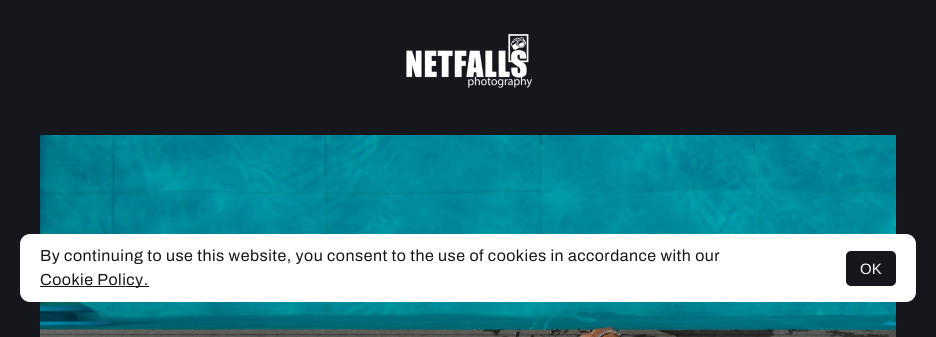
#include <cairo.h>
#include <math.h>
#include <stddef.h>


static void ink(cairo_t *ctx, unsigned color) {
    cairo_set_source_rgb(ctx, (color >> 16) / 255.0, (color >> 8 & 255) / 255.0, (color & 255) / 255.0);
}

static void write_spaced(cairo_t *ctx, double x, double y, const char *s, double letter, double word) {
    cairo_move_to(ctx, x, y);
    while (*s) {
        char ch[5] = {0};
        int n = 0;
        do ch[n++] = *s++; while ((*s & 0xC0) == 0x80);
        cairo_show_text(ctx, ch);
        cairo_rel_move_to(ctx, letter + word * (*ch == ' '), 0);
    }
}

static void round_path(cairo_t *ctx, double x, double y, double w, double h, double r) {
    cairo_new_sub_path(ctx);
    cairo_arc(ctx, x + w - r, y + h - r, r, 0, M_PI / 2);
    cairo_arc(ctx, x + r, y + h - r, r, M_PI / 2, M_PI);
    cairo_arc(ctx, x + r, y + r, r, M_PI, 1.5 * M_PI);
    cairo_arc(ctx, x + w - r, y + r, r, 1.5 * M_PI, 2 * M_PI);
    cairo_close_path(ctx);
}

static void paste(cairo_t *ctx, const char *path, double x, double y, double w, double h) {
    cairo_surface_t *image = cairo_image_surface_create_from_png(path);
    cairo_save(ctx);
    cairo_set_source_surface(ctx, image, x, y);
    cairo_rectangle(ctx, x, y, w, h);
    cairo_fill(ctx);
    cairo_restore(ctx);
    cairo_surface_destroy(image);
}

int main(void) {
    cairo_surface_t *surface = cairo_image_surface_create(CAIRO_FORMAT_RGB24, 936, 337);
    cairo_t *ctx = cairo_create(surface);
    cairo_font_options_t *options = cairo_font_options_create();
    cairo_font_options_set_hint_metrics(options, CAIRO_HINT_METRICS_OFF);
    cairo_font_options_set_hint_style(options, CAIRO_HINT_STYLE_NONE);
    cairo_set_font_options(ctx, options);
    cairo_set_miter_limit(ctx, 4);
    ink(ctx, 0x16161D);
    cairo_paint(ctx);
    paste(ctx, "media/1.png", 406, 34, 126, 54);
    paste(ctx, "media/2.png", 40, 135, 856, 202);
    ink(ctx, 0xFFFFFF);
    round_path(ctx, 20, 234, 896, 68, 10);
    cairo_fill(ctx);
    cairo_select_font_face(ctx, "Archivo", CAIRO_FONT_SLANT_NORMAL, CAIRO_FONT_WEIGHT_NORMAL);
    cairo_set_font_size(ctx, 16);
    ink(ctx, 0x16161D);
    write_spaced(ctx, 40, 261, "By continuing to use this website, you consent to the use of cookies in accordance with our", 0.5, 0);
    cairo_rectangle(ctx, 40, 286, 109, 1);
    cairo_fill(ctx);
    write_spaced(ctx, 40, 285, "Cookie Policy.", 0.5, 0);
    round_path(ctx, 846, 251, 50, 35, 5);
    cairo_fill(ctx);
    cairo_select_font_face(ctx, "Liberation Sans", CAIRO_FONT_SLANT_NORMAL, CAIRO_FONT_WEIGHT_NORMAL);
    cairo_set_font_size(ctx, 15);
    ink(ctx, 0xFFFFFF);
    cairo_move_to(ctx, 860, 274);
    cairo_show_text(ctx, "OK");
    cairo_surface_write_to_png(surface, "image.png");
    cairo_font_options_destroy(options);
    cairo_destroy(ctx);
    cairo_surface_destroy(surface);
    return 0;
}
